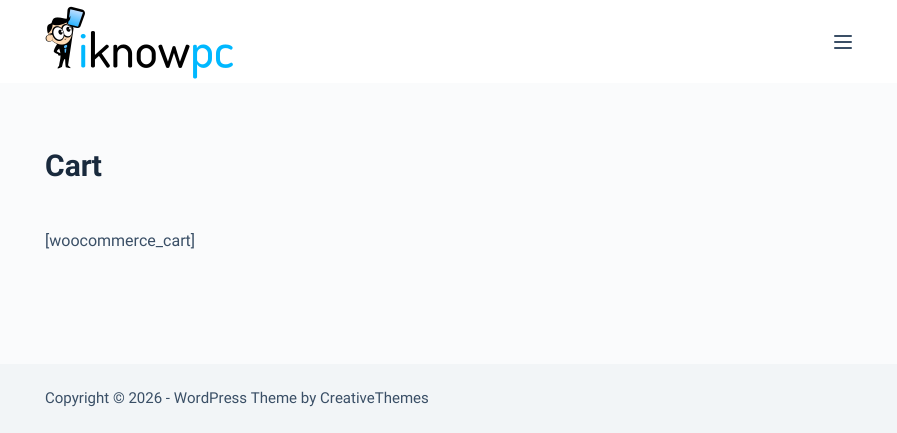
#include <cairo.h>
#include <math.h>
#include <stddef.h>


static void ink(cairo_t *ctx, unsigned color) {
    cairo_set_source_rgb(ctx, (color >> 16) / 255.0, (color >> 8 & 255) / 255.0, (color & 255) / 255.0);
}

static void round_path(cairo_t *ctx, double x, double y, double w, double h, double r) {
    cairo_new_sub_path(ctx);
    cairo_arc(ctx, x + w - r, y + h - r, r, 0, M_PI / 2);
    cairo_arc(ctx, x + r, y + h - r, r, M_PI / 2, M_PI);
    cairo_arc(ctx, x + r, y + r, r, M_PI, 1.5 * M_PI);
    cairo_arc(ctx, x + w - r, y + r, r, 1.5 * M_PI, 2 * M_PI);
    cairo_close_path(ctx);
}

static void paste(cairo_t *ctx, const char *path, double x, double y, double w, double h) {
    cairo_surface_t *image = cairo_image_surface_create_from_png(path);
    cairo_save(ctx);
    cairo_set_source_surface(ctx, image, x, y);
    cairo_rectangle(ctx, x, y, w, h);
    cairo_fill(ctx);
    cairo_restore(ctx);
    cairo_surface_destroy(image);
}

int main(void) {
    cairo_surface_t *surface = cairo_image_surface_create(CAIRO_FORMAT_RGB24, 897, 433);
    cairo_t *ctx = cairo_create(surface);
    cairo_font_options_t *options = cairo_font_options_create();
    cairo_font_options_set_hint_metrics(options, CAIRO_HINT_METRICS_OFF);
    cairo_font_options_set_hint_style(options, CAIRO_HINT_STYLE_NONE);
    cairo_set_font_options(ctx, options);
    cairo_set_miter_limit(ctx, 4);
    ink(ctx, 0xFAFBFC);
    cairo_paint(ctx);
    ink(ctx, 0xFFFFFF);
    cairo_rectangle(ctx, 0, 0, 897, 83);
    cairo_fill(ctx);
    paste(ctx, "media/1.png", 45, 6, 188, 73);
    ink(ctx, 0x3A4F66);
    round_path(ctx, 834, 35, 18, 2, 1);
    cairo_fill(ctx);
    round_path(ctx, 834, 41, 18, 2, 1);
    cairo_fill(ctx);
    round_path(ctx, 834, 47, 18, 2, 1);
    cairo_fill(ctx);
    cairo_select_font_face(ctx, "Roboto", CAIRO_FONT_SLANT_NORMAL, CAIRO_FONT_WEIGHT_BOLD);
    cairo_set_font_size(ctx, 30);
    ink(ctx, 0x192A3D);
    cairo_move_to(ctx, 45, 176);
    cairo_show_text(ctx, "Cart");
    cairo_select_font_face(ctx, "Roboto", CAIRO_FONT_SLANT_NORMAL, CAIRO_FONT_WEIGHT_NORMAL);
    cairo_set_font_size(ctx, 16);
    ink(ctx, 0x3A4F66);
    cairo_move_to(ctx, 45, 246);
    cairo_show_text(ctx, "[woocommerce_cart]");
    ink(ctx, 0xF2F5F7);
    cairo_rectangle(ctx, 0, 364, 897, 69);
    cairo_fill(ctx);
    cairo_set_font_size(ctx, 15);
    ink(ctx, 0x3A4F66);
    cairo_move_to(ctx, 45, 403);
    cairo_show_text(ctx, "Copyright © 2026 - WordPress Theme by CreativeThemes");
    cairo_surface_write_to_png(surface, "image.png");
    cairo_font_options_destroy(options);
    cairo_destroy(ctx);
    cairo_surface_destroy(surface);
    return 0;
}
